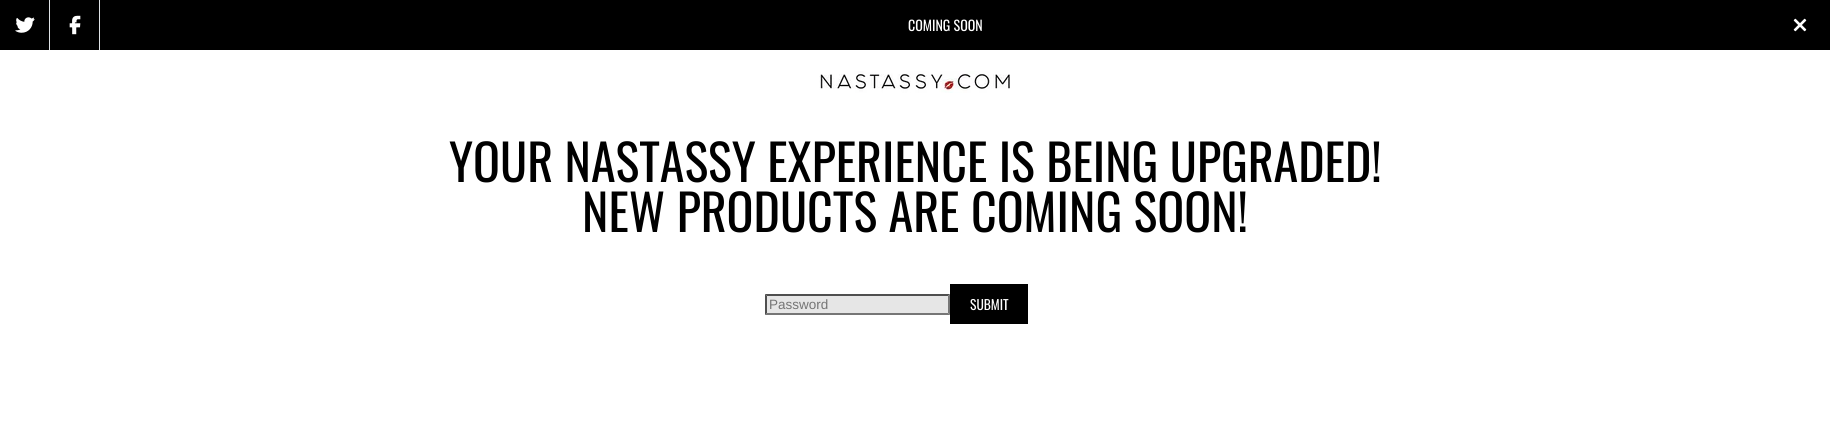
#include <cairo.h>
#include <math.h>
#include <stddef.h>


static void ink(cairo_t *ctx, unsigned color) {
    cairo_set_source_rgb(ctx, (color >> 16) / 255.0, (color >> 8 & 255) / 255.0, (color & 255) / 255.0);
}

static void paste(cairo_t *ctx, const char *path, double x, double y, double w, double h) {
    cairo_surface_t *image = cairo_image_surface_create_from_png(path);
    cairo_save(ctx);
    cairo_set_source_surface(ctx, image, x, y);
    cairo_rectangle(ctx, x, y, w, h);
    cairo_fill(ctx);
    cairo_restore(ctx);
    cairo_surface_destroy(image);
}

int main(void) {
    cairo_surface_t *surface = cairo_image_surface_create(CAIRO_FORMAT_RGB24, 1830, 422);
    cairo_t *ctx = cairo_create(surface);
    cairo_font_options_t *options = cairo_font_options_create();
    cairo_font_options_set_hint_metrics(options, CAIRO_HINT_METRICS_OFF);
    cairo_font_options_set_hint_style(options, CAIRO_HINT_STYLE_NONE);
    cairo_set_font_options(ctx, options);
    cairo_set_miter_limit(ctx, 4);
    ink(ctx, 0xFFFFFF);
    cairo_paint(ctx);
    ink(ctx, 0x000000);
    cairo_rectangle(ctx, 0, 0, 1830, 50);
    cairo_fill(ctx);
    ink(ctx, 0xDEE2E6);
    cairo_rectangle(ctx, 49, 0, 1, 50);
    cairo_fill(ctx);
    paste(ctx, "media/1.png", 15, 17, 20, 16);
    cairo_rectangle(ctx, 99, 0, 1, 50);
    cairo_fill(ctx);
    paste(ctx, "media/2.png", 69, 15, 12, 20);
    cairo_select_font_face(ctx, "Oswald", CAIRO_FONT_SLANT_NORMAL, CAIRO_FONT_WEIGHT_NORMAL);
    cairo_set_font_size(ctx, 14);
    ink(ctx, 0xFFFFFF);
    cairo_move_to(ctx, 908, 31);
    cairo_show_text(ctx, "COMING SOON");
    paste(ctx, "media/3.png", 1793, 18, 14, 14);
    paste(ctx, "media/4.png", 819, 71, 191, 22);
    cairo_set_font_size(ctx, 50);
    ink(ctx, 0x000000);
    cairo_move_to(ctx, 449, 182);
    cairo_show_text(ctx, "YOUR NASTASSY EXPERIENCE IS BEING UPGRADED!");
    cairo_move_to(ctx, 582, 232);
    cairo_show_text(ctx, "NEW PRODUCTS ARE COMING SOON!");
    ink(ctx, 0xE6E6E6);
    cairo_rectangle(ctx, 765, 294, 185, 21);
    cairo_fill(ctx);
    ink(ctx, 0x4F4F4F);
    cairo_new_path(ctx);
    cairo_move_to(ctx, 765, 294);
    cairo_line_to(ctx, 950, 294);
    cairo_line_to(ctx, 948, 296);
    cairo_line_to(ctx, 767, 296);
    cairo_close_path(ctx);
    cairo_fill(ctx);
    ink(ctx, 0x767676);
    cairo_new_path(ctx);
    cairo_move_to(ctx, 950, 294);
    cairo_line_to(ctx, 950, 315);
    cairo_line_to(ctx, 948, 313);
    cairo_line_to(ctx, 948, 296);
    cairo_close_path(ctx);
    cairo_fill(ctx);
    cairo_new_path(ctx);
    cairo_move_to(ctx, 950, 315);
    cairo_line_to(ctx, 765, 315);
    cairo_line_to(ctx, 767, 313);
    cairo_line_to(ctx, 948, 313);
    cairo_close_path(ctx);
    cairo_fill(ctx);
    ink(ctx, 0x4F4F4F);
    cairo_new_path(ctx);
    cairo_move_to(ctx, 765, 315);
    cairo_line_to(ctx, 765, 294);
    cairo_line_to(ctx, 767, 296);
    cairo_line_to(ctx, 767, 313);
    cairo_close_path(ctx);
    cairo_fill(ctx);
    cairo_select_font_face(ctx, "Liberation Sans", CAIRO_FONT_SLANT_NORMAL, CAIRO_FONT_WEIGHT_NORMAL);
    cairo_set_font_size(ctx, 13.5);
    ink(ctx, 0x757575);
    cairo_move_to(ctx, 769, 309);
    cairo_show_text(ctx, "Password");
    ink(ctx, 0x000000);
    cairo_rectangle(ctx, 950, 284, 78, 40);
    cairo_fill(ctx);
    cairo_select_font_face(ctx, "Oswald", CAIRO_FONT_SLANT_NORMAL, CAIRO_FONT_WEIGHT_NORMAL);
    ink(ctx, 0xFFFFFF);
    cairo_move_to(ctx, 970, 310);
    cairo_show_text(ctx, "SUBMIT");
    cairo_surface_write_to_png(surface, "image.png");
    cairo_font_options_destroy(options);
    cairo_destroy(ctx);
    cairo_surface_destroy(surface);
    return 0;
}
